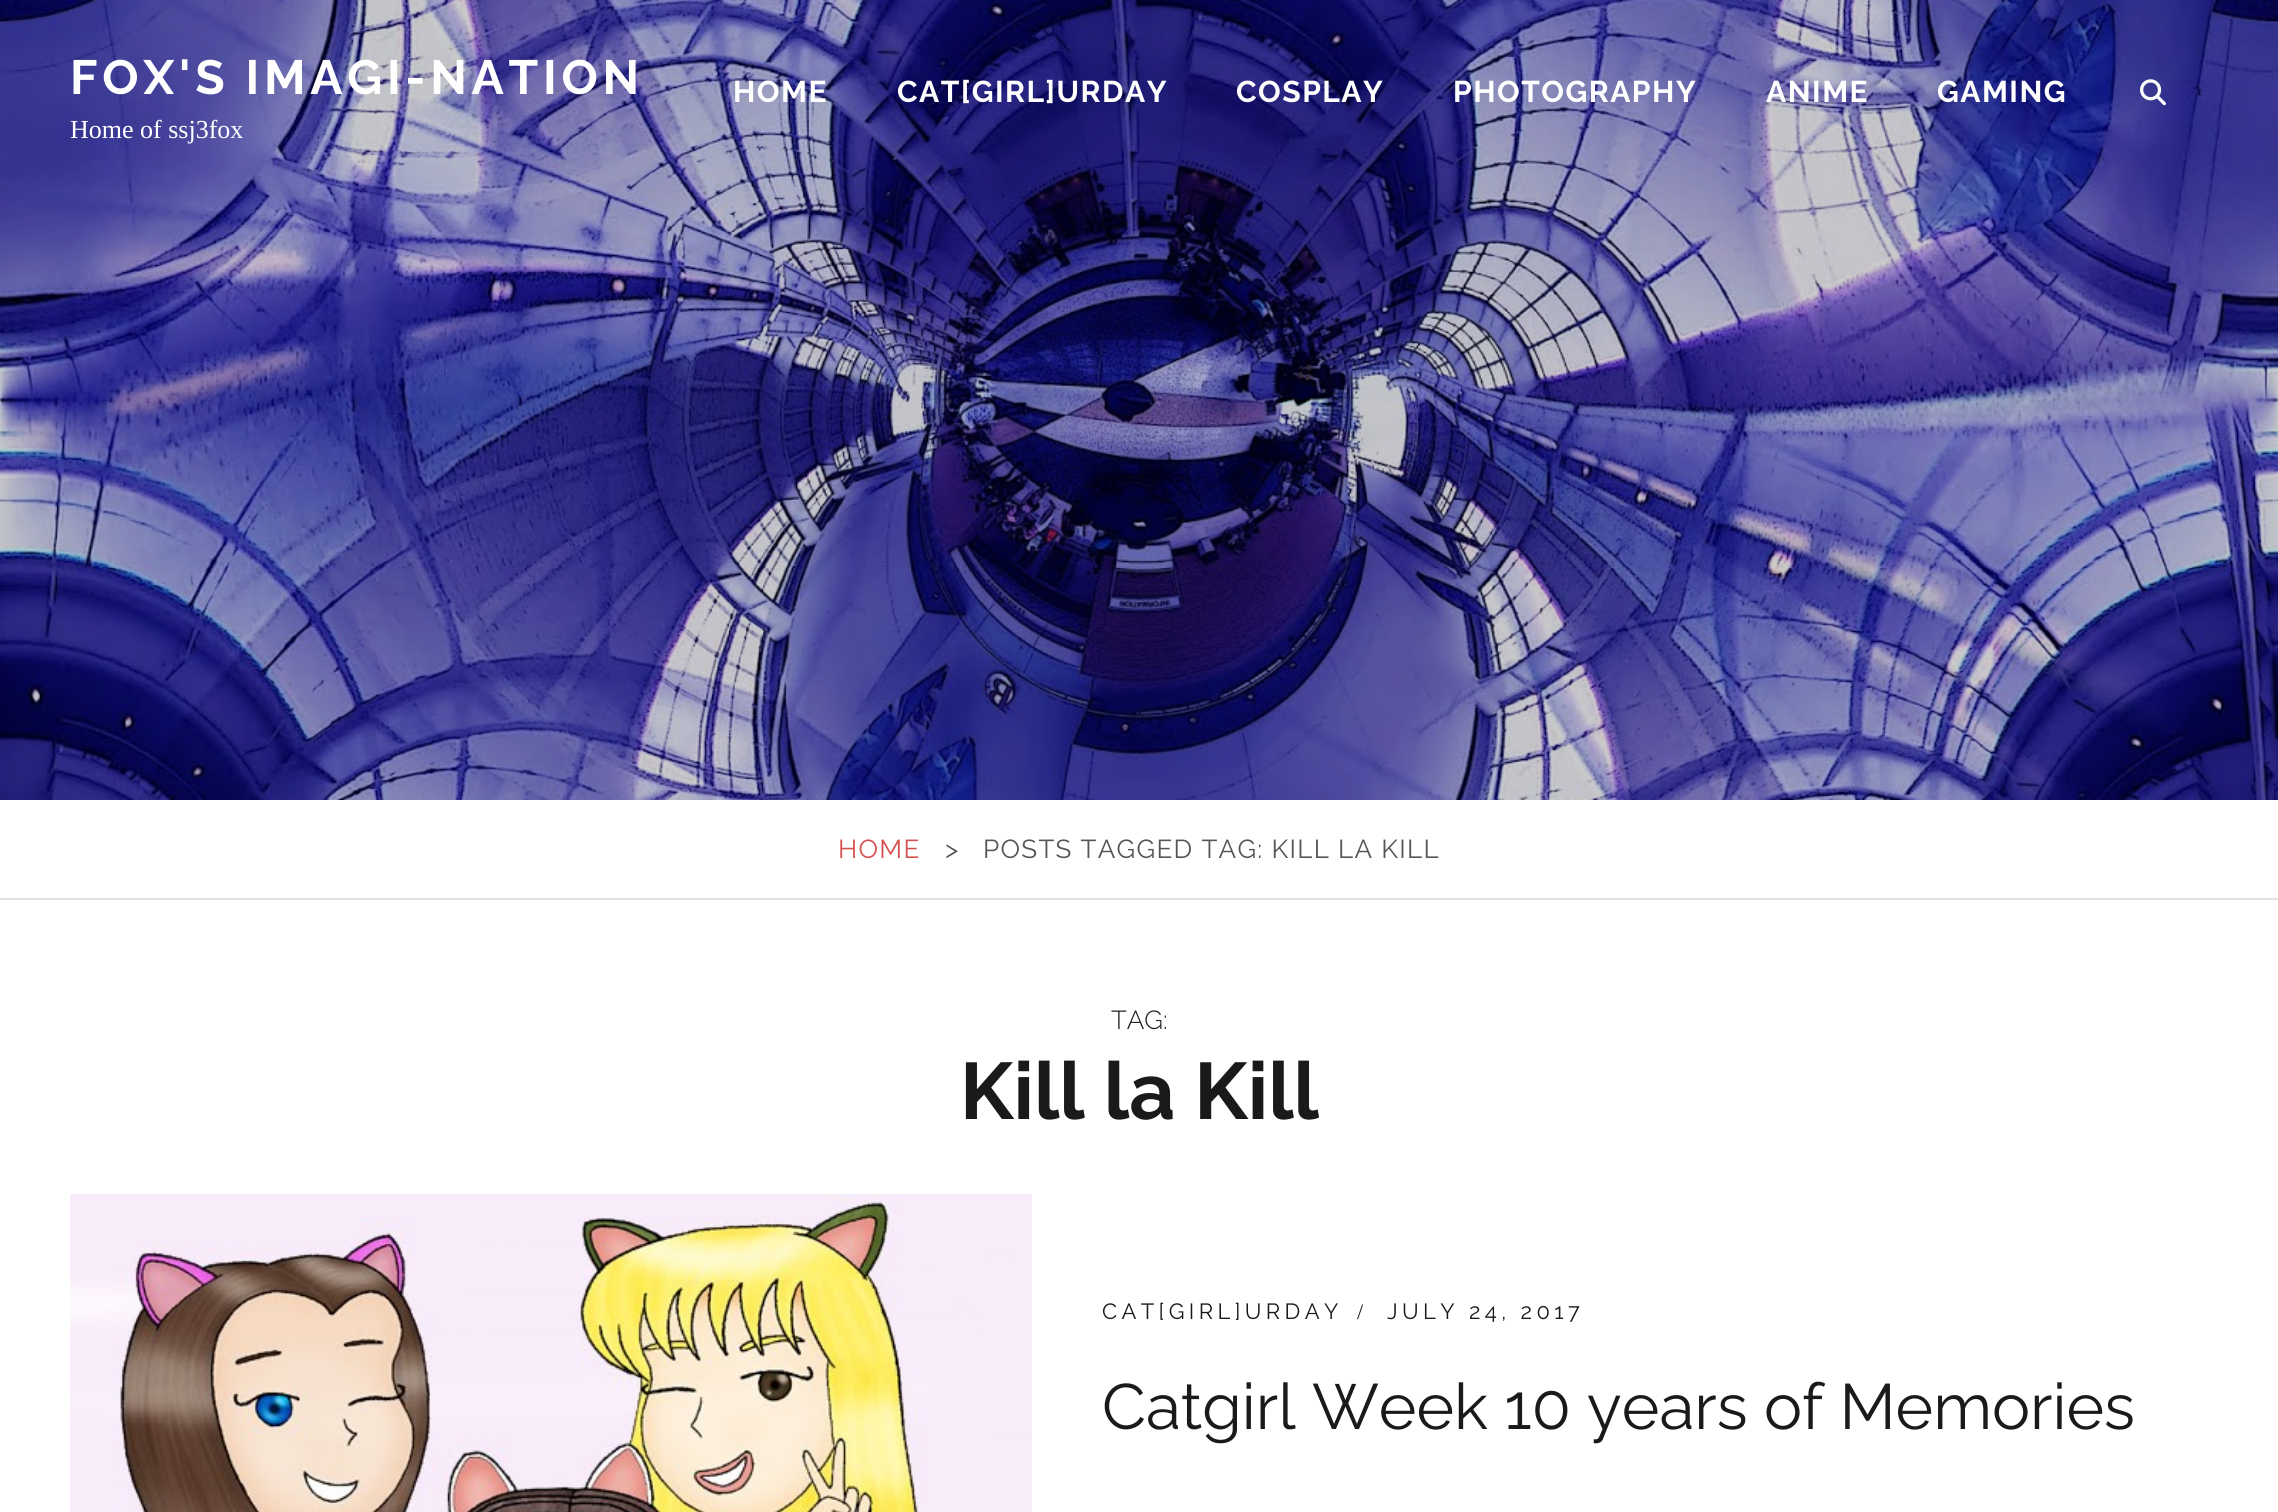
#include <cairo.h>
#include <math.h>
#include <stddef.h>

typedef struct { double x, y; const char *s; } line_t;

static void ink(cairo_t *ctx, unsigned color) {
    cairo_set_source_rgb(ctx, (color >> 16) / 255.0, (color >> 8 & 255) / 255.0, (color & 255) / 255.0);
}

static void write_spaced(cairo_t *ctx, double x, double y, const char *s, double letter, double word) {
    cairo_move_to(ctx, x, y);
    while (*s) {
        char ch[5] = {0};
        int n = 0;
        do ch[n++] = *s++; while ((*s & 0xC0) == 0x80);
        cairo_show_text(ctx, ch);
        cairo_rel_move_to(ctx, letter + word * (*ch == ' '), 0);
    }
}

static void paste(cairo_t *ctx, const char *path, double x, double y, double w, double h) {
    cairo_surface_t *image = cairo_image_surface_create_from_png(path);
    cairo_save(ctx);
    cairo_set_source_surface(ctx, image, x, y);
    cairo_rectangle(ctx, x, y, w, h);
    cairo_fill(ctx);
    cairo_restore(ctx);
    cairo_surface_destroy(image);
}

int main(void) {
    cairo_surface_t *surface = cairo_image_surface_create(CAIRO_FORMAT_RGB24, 2278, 1512);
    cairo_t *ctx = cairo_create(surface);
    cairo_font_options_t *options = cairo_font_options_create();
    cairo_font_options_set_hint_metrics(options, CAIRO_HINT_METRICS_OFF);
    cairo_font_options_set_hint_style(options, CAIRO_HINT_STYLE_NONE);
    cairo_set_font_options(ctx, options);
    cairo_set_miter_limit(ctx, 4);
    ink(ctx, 0xFFFFFF);
    cairo_paint(ctx);
    paste(ctx, "media/2.png", 0, 0, 2278, 800);
    cairo_select_font_face(ctx, "Raleway", CAIRO_FONT_SLANT_NORMAL, CAIRO_FONT_WEIGHT_BOLD);
    cairo_set_font_size(ctx, 48);
    ink(ctx, 0xFFFFFF);
    write_spaced(ctx, 70, 94, "FOX'S IMAGI-NATION", 4.75, 0);
    cairo_select_font_face(ctx, "Liberation Serif", CAIRO_FONT_SLANT_NORMAL, CAIRO_FONT_WEIGHT_NORMAL);
    cairo_set_font_size(ctx, 26);
    cairo_move_to(ctx, 70, 138);
    cairo_show_text(ctx, "Home of ssj3fox");
    cairo_select_font_face(ctx, "Raleway", CAIRO_FONT_SLANT_NORMAL, CAIRO_FONT_WEIGHT_BOLD);
    cairo_set_font_size(ctx, 30);
    {
        static const line_t items[] = {
            {733, 102, "HOME"},
            {897, 102, "CAT[GIRL]URDAY"},
            {1236, 102, "COSPLAY"},
            {1453, 102, "PHOTOGRAPHY"},
            {1766, 102, "ANIME"},
            {1937, 102, "GAMING"},
        };
        for (size_t i = 0; i < sizeof items / sizeof *items; i++) {
            write_spaced(ctx, items[i].x, items[i].y, items[i].s, 1.5, 0);
        }
    }
    paste(ctx, "media/1.png", 2140, 79, 26, 27);
    ink(ctx, 0xE1E1E1);
    cairo_rectangle(ctx, 0, 898, 2278, 2);
    cairo_fill(ctx);
    cairo_select_font_face(ctx, "Raleway", CAIRO_FONT_SLANT_NORMAL, CAIRO_FONT_WEIGHT_NORMAL);
    cairo_set_font_size(ctx, 26);
    ink(ctx, 0xD65050);
    write_spaced(ctx, 838, 858, "HOME", 1.3, 0);
    ink(ctx, 0x555555);
    write_spaced(ctx, 945, 858, ">", 1.3, 0);
    write_spaced(ctx, 983, 858, "POSTS TAGGED TAG: KILL LA KILL", 1.3, 0);
    cairo_select_font_face(ctx, "Raleway Light", CAIRO_FONT_SLANT_NORMAL, CAIRO_FONT_WEIGHT_NORMAL);
    ink(ctx, 0x1A1A1A);
    cairo_move_to(ctx, 1111, 1029);
    cairo_show_text(ctx, "TAG:");
    cairo_select_font_face(ctx, "Raleway", CAIRO_FONT_SLANT_NORMAL, CAIRO_FONT_WEIGHT_BOLD);
    cairo_set_font_size(ctx, 80);
    cairo_move_to(ctx, 960, 1119);
    cairo_show_text(ctx, "Kill la Kill");
    paste(ctx, "media/3.png", 70, 1194, 962, 318);
    cairo_select_font_face(ctx, "Raleway", CAIRO_FONT_SLANT_NORMAL, CAIRO_FONT_WEIGHT_NORMAL);
    cairo_set_font_size(ctx, 22);
    write_spaced(ctx, 1102, 1319, "CAT[GIRL]URDAY", 4.4, 0);
    cairo_select_font_face(ctx, "Liberation Serif", CAIRO_FONT_SLANT_NORMAL, CAIRO_FONT_WEIGHT_NORMAL);
    write_spaced(ctx, 1357, 1319, "/", 4.4, 0);
    cairo_select_font_face(ctx, "Raleway", CAIRO_FONT_SLANT_NORMAL, CAIRO_FONT_WEIGHT_NORMAL);
    write_spaced(ctx, 1387, 1319, "JULY 24, 2017", 4.4, 0);
    cairo_set_font_size(ctx, 64);
    cairo_move_to(ctx, 1102, 1429);
    cairo_show_text(ctx, "Catgirl Week 10 years of Memories");
    cairo_surface_write_to_png(surface, "image.png");
    cairo_font_options_destroy(options);
    cairo_destroy(ctx);
    cairo_surface_destroy(surface);
    return 0;
}
